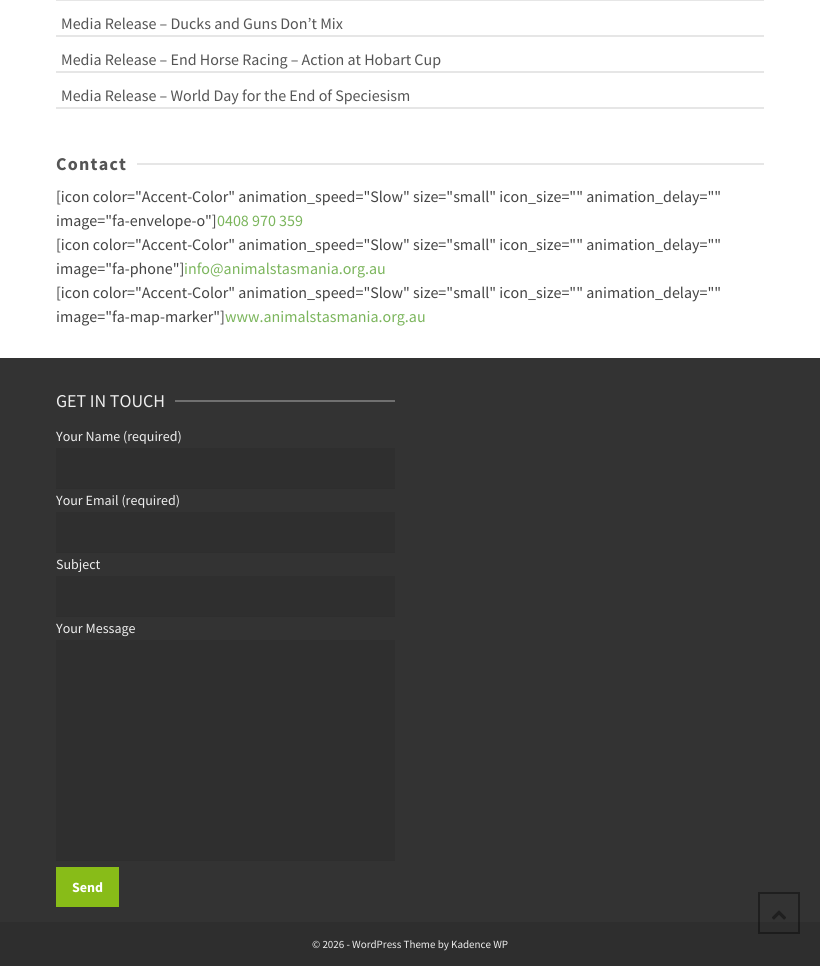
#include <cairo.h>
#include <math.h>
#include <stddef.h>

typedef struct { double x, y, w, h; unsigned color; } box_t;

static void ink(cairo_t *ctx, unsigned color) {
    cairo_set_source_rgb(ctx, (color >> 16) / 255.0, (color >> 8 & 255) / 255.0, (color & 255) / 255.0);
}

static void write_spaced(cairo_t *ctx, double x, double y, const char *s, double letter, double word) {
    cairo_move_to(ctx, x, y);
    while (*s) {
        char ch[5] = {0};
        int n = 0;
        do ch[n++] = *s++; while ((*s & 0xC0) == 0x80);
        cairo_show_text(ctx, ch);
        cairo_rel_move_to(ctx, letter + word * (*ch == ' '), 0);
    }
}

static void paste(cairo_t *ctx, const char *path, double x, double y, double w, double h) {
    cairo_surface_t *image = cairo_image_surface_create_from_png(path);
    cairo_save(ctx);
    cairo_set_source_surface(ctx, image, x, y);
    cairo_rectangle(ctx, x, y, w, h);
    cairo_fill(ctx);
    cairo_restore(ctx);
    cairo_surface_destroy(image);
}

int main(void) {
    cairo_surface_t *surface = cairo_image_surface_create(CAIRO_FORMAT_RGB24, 820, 966);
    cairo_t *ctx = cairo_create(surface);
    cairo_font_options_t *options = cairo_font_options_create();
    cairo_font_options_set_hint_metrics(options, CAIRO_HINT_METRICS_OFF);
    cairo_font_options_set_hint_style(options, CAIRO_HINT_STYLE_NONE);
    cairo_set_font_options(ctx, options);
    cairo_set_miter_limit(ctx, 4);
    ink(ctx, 0xFFFFFF);
    cairo_paint(ctx);
    ink(ctx, 0xE6E6E6);
    cairo_rectangle(ctx, 56, 0, 708, 1);
    cairo_fill(ctx);
    cairo_rectangle(ctx, 56, 35, 708, 2);
    cairo_fill(ctx);
    cairo_select_font_face(ctx, "Source Sans Pro", CAIRO_FONT_SLANT_NORMAL, CAIRO_FONT_WEIGHT_NORMAL);
    cairo_set_font_size(ctx, 16);
    ink(ctx, 0x555555);
    cairo_move_to(ctx, 61, 29);
    cairo_show_text(ctx, "Media Release – Ducks and Guns Don’t Mix");
    ink(ctx, 0xE6E6E6);
    cairo_rectangle(ctx, 56, 71, 708, 2);
    cairo_fill(ctx);
    ink(ctx, 0x555555);
    cairo_move_to(ctx, 61, 65);
    cairo_show_text(ctx, "Media Release – End Horse Racing – Action at Hobart Cup");
    ink(ctx, 0xE6E6E6);
    cairo_rectangle(ctx, 56, 107, 708, 2);
    cairo_fill(ctx);
    ink(ctx, 0x555555);
    cairo_move_to(ctx, 61, 101);
    cairo_show_text(ctx, "Media Release – World Day for the End of Speciesism");
    cairo_select_font_face(ctx, "Source Sans Pro", CAIRO_FONT_SLANT_NORMAL, CAIRO_FONT_WEIGHT_BOLD);
    cairo_set_font_size(ctx, 18);
    write_spaced(ctx, 56, 170, "Contact", 1.25, 0);
    ink(ctx, 0xE6E6E6);
    cairo_rectangle(ctx, 137, 163, 627, 2);
    cairo_fill(ctx);
    cairo_select_font_face(ctx, "Source Sans Pro", CAIRO_FONT_SLANT_NORMAL, CAIRO_FONT_WEIGHT_NORMAL);
    cairo_set_font_size(ctx, 16);
    ink(ctx, 0x444444);
    cairo_move_to(ctx, 56, 202);
    cairo_show_text(ctx, "[icon color=\"Accent-Color\" animation_speed=\"Slow\" size=\"small\" icon_size=\"\" animation_delay=\"\"");
    cairo_move_to(ctx, 56, 226);
    cairo_show_text(ctx, "image=\"fa-envelope-o\"]");
    ink(ctx, 0x7BB55C);
    cairo_move_to(ctx, 217, 226);
    cairo_show_text(ctx, "0408 970 359");
    ink(ctx, 0x444444);
    cairo_move_to(ctx, 56, 250);
    cairo_show_text(ctx, "[icon color=\"Accent-Color\" animation_speed=\"Slow\" size=\"small\" icon_size=\"\" animation_delay=\"\"");
    cairo_move_to(ctx, 56, 274);
    cairo_show_text(ctx, "image=\"fa-phone\"]");
    ink(ctx, 0x7BB55C);
    cairo_move_to(ctx, 184, 274);
    cairo_show_text(ctx, "info@animalstasmania.org.au");
    ink(ctx, 0x444444);
    cairo_move_to(ctx, 56, 298);
    cairo_show_text(ctx, "[icon color=\"Accent-Color\" animation_speed=\"Slow\" size=\"small\" icon_size=\"\" animation_delay=\"\"");
    cairo_move_to(ctx, 56, 322);
    cairo_show_text(ctx, "image=\"fa-map-marker\"]");
    ink(ctx, 0x7BB55C);
    cairo_move_to(ctx, 225, 322);
    cairo_show_text(ctx, "www.animalstasmania.org.au");
    ink(ctx, 0x333333);
    cairo_rectangle(ctx, 0, 358, 820, 564);
    cairo_fill(ctx);
    cairo_set_font_size(ctx, 18);
    ink(ctx, 0xEEEEEE);
    cairo_move_to(ctx, 56, 407);
    cairo_show_text(ctx, "GET IN TOUCH");
    ink(ctx, 0x707070);
    cairo_rectangle(ctx, 175, 400, 220, 2);
    cairo_fill(ctx);
    cairo_set_font_size(ctx, 14);
    ink(ctx, 0xEEEEEE);
    cairo_move_to(ctx, 56, 441);
    cairo_show_text(ctx, "Your Name (required)");
    ink(ctx, 0x2E2E2E);
    cairo_rectangle(ctx, 56, 488, 339, 1);
    cairo_fill(ctx);
    ink(ctx, 0x2F2F2F);
    cairo_rectangle(ctx, 56, 448, 339, 40);
    cairo_fill(ctx);
    ink(ctx, 0xEEEEEE);
    cairo_move_to(ctx, 56, 505);
    cairo_show_text(ctx, "Your Email (required)");
    ink(ctx, 0x2E2E2E);
    cairo_rectangle(ctx, 56, 552, 339, 1);
    cairo_fill(ctx);
    ink(ctx, 0x2F2F2F);
    cairo_rectangle(ctx, 56, 512, 339, 40);
    cairo_fill(ctx);
    ink(ctx, 0xEEEEEE);
    cairo_move_to(ctx, 56, 569);
    cairo_show_text(ctx, "Subject");
    ink(ctx, 0x2E2E2E);
    cairo_rectangle(ctx, 56, 616, 339, 1);
    cairo_fill(ctx);
    ink(ctx, 0x2F2F2F);
    cairo_rectangle(ctx, 56, 576, 339, 40);
    cairo_fill(ctx);
    ink(ctx, 0xEEEEEE);
    cairo_move_to(ctx, 56, 633);
    cairo_show_text(ctx, "Your Message");
    {
        static const box_t items[] = {
            {56, 860, 339, 1, 0x2E2E2E},
            {56, 640, 339, 220, 0x2F2F2F},
            {56, 867, 63, 40, 0x88BC18},
        };
        for (size_t i = 0; i < sizeof items / sizeof *items; i++) {
            ink(ctx, items[i].color);
            cairo_rectangle(ctx, items[i].x, items[i].y, items[i].w, items[i].h);
            cairo_fill(ctx);
        }
    }
    cairo_select_font_face(ctx, "Source Sans Pro", CAIRO_FONT_SLANT_NORMAL, CAIRO_FONT_WEIGHT_BOLD);
    ink(ctx, 0xFFFFFF);
    cairo_move_to(ctx, 72, 892);
    cairo_show_text(ctx, "Send");
    ink(ctx, 0x2E2E2E);
    cairo_rectangle(ctx, 0, 922, 820, 44);
    cairo_fill(ctx);
    cairo_select_font_face(ctx, "Source Sans Pro", CAIRO_FONT_SLANT_NORMAL, CAIRO_FONT_WEIGHT_NORMAL);
    cairo_set_font_size(ctx, 11);
    ink(ctx, 0xEEEEEE);
    cairo_move_to(ctx, 312, 948);
    cairo_show_text(ctx, "© 2026 - WordPress Theme by Kadence WP");
    cairo_rectangle(ctx, 759, 893, 40, 40);
    cairo_set_source_rgba(ctx, 0, 0, 0, 0.4);
    cairo_stroke(ctx);
    paste(ctx, "media/1.png", 772, 910, 14, 10);
    cairo_surface_write_to_png(surface, "image.png");
    cairo_font_options_destroy(options);
    cairo_destroy(ctx);
    cairo_surface_destroy(surface);
    return 0;
}
